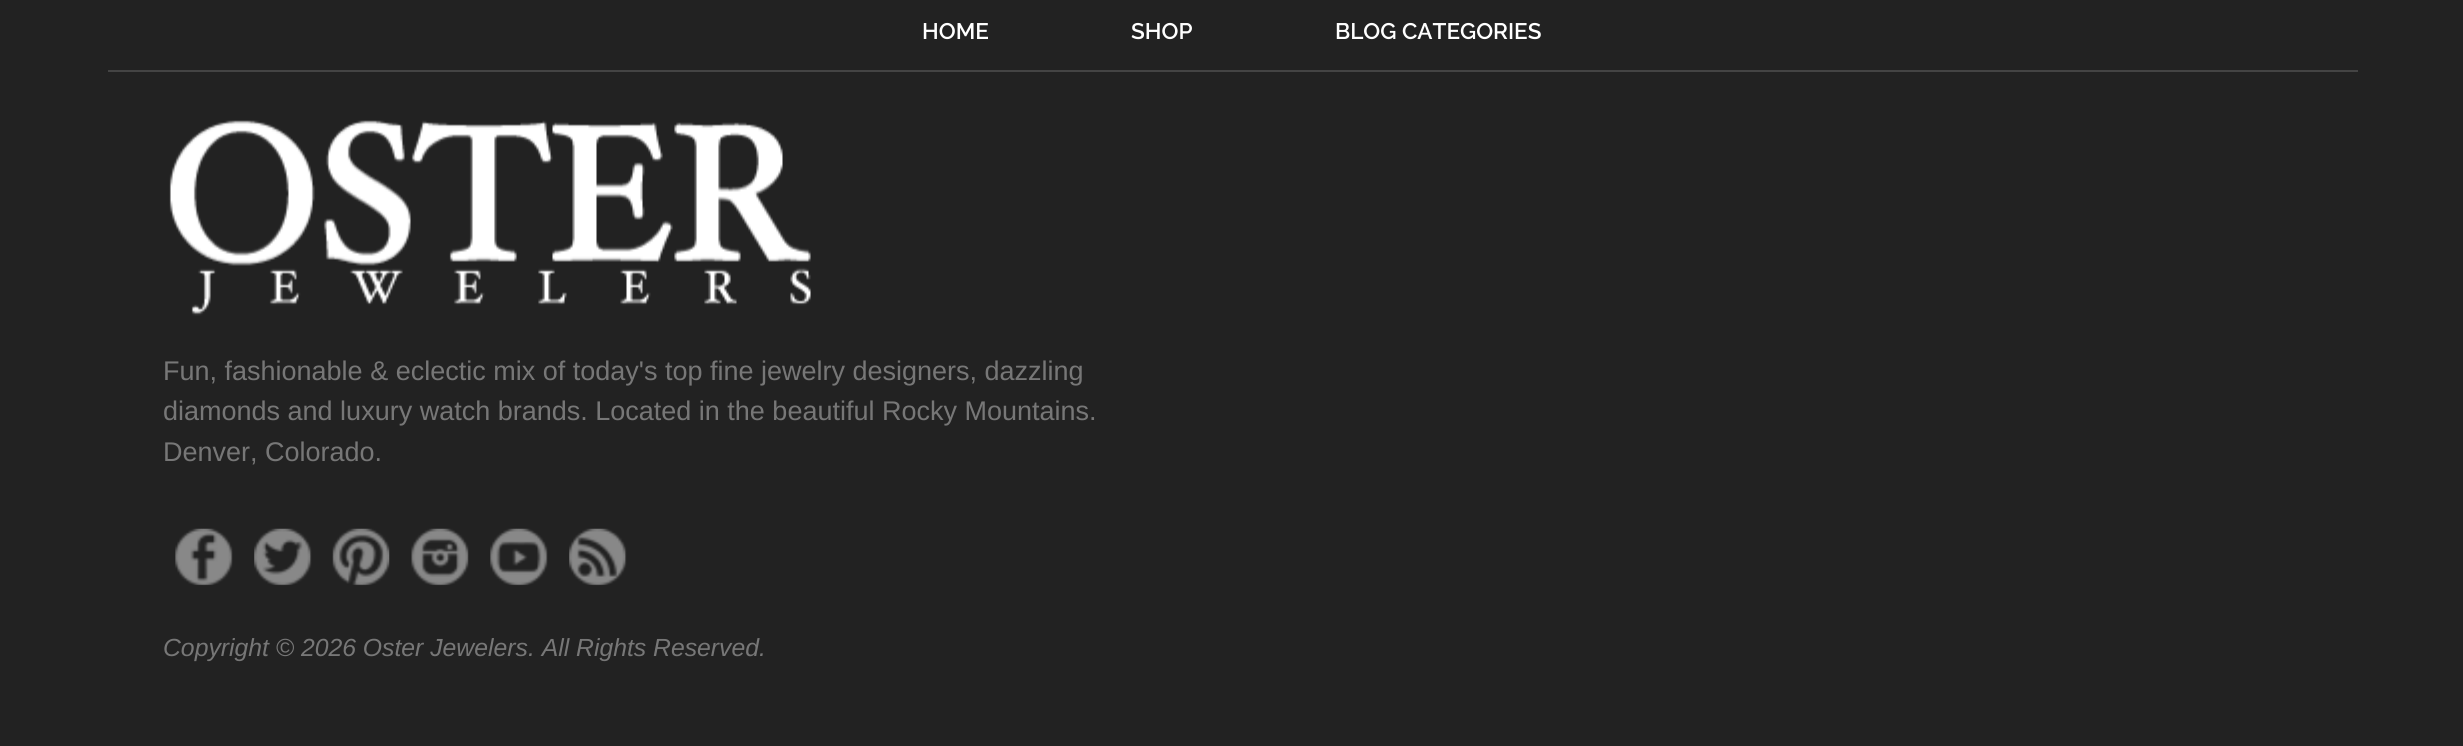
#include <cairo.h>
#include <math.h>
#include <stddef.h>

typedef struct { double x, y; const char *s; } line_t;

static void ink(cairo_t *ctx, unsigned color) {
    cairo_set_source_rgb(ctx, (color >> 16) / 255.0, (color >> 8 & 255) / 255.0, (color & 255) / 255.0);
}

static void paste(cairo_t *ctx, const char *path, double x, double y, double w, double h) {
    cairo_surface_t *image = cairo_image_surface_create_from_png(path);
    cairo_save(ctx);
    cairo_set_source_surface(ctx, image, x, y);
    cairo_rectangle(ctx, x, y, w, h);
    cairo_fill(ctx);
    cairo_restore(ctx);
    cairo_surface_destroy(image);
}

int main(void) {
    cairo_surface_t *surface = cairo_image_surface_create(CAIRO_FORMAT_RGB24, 2463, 746);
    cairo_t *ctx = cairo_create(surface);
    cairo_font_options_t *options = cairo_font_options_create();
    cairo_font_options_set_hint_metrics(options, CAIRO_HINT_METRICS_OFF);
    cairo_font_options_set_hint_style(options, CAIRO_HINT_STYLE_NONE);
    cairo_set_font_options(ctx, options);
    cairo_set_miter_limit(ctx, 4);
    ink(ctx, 0x222222);
    cairo_paint(ctx);
    ink(ctx, 0x444444);
    cairo_rectangle(ctx, 108, 70, 2250, 2);
    cairo_fill(ctx);
    cairo_select_font_face(ctx, "Raleway SemiBold", CAIRO_FONT_SLANT_NORMAL, CAIRO_FONT_WEIGHT_NORMAL);
    cairo_set_font_size(ctx, 22.5);
    ink(ctx, 0xFFFFFF);
    {
        static const line_t items[] = {
            {922, 39, "HOME"},
            {1131, 39, "SHOP"},
            {1335, 39, "BLOG CATEGORIES"},
        };
        for (size_t i = 0; i < sizeof items / sizeof *items; i++) {
            cairo_move_to(ctx, items[i].x, items[i].y);
            cairo_show_text(ctx, items[i].s);
        }
    }
    paste(ctx, "media/1.png", 169, 120, 642, 196);
    cairo_select_font_face(ctx, "Liberation Sans", CAIRO_FONT_SLANT_NORMAL, CAIRO_FONT_WEIGHT_NORMAL);
    cairo_set_font_size(ctx, 27);
    ink(ctx, 0x777777);
    {
        static const line_t items[] = {
            {163, 380, "Fun, fashionable & eclectic mix of today's top fine jewelry designers, dazzling"},
            {163, 420, "diamonds and luxury watch brands. Located in the beautiful Rocky Mountains."},
            {163, 461, "Denver, Colorado."},
        };
        for (size_t i = 0; i < sizeof items / sizeof *items; i++) {
            cairo_move_to(ctx, items[i].x, items[i].y);
            cairo_show_text(ctx, items[i].s);
        }
    }
    paste(ctx, "media/2.png", 175, 528, 58, 58);
    paste(ctx, "media/3.png", 254, 528, 58, 58);
    paste(ctx, "media/4.png", 332, 528, 58, 58);
    paste(ctx, "media/5.png", 411, 528, 58, 58);
    paste(ctx, "media/6.png", 490, 528, 58, 58);
    paste(ctx, "media/7.png", 569, 528, 58, 58);
    cairo_select_font_face(ctx, "Liberation Sans", CAIRO_FONT_SLANT_ITALIC, CAIRO_FONT_WEIGHT_NORMAL);
    cairo_set_font_size(ctx, 24.75);
    cairo_move_to(ctx, 163, 656);
    cairo_show_text(ctx, "Copyright © 2026 Oster Jewelers. All Rights Reserved.");
    cairo_surface_write_to_png(surface, "image.png");
    cairo_font_options_destroy(options);
    cairo_destroy(ctx);
    cairo_surface_destroy(surface);
    return 0;
}
